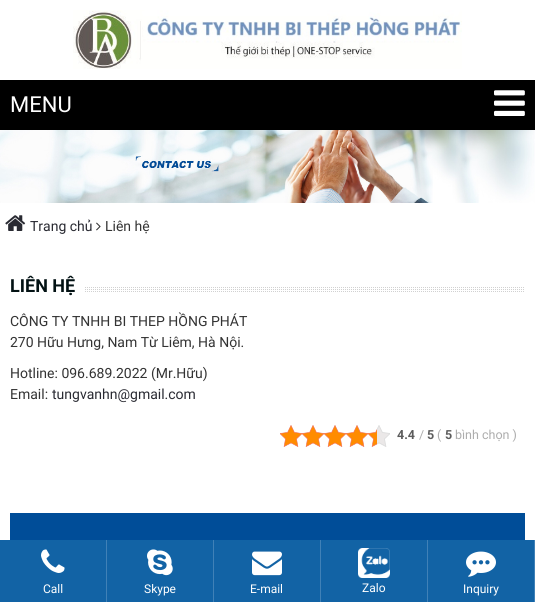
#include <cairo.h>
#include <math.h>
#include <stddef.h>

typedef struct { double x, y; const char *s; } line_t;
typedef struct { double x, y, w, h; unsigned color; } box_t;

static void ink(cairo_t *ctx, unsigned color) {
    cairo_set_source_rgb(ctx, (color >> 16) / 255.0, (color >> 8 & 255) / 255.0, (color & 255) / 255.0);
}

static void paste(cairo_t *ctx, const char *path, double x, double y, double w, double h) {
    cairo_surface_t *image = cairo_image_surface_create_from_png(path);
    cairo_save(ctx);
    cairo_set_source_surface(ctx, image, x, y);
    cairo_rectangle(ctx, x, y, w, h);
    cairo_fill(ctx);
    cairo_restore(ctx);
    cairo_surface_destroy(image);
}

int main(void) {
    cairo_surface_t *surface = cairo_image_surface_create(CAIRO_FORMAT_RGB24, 535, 602);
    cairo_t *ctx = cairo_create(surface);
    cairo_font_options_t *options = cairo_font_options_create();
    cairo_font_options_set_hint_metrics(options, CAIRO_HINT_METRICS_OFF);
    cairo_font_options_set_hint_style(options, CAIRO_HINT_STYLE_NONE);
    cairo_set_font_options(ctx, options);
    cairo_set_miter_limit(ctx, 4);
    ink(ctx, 0xFFFFFF);
    cairo_paint(ctx);
    paste(ctx, "media/1.png", 73, 10, 389, 59);
    ink(ctx, 0x000000);
    cairo_rectangle(ctx, 0, 80, 535, 50);
    cairo_fill(ctx);
    cairo_select_font_face(ctx, "Roboto", CAIRO_FONT_SLANT_NORMAL, CAIRO_FONT_WEIGHT_NORMAL);
    cairo_set_font_size(ctx, 22);
    ink(ctx, 0xFFFFFF);
    cairo_move_to(ctx, 10, 112);
    cairo_show_text(ctx, "MENU");
    paste(ctx, "media/2.png", 494, 90, 31, 26);
    paste(ctx, "media/3.png", 0, 130, 535, 73);
    paste(ctx, "media/4.png", 5, 215, 21, 16);
    cairo_set_font_size(ctx, 14);
    ink(ctx, 0x292A32);
    cairo_move_to(ctx, 30, 231);
    cairo_show_text(ctx, "Trang chủ");
    paste(ctx, "media/5.png", 96, 222, 5, 9);
    ink(ctx, 0x333333);
    cairo_move_to(ctx, 105, 231);
    cairo_show_text(ctx, "Liên hệ");
    paste(ctx, "media/6.png", 85, 287, 439, 5);
    cairo_select_font_face(ctx, "Roboto", CAIRO_FONT_SLANT_NORMAL, CAIRO_FONT_WEIGHT_BOLD);
    cairo_set_font_size(ctx, 18);
    ink(ctx, 0x031214);
    cairo_move_to(ctx, 10, 292);
    cairo_show_text(ctx, "LIÊN HỆ");
    cairo_select_font_face(ctx, "Roboto", CAIRO_FONT_SLANT_NORMAL, CAIRO_FONT_WEIGHT_NORMAL);
    cairo_set_font_size(ctx, 14);
    ink(ctx, 0x333333);
    {
        static const line_t items[] = {
            {10, 326, "CÔNG TY TNHH BI THEP HỒNG PHÁT"},
            {10, 347, "270 Hữu Hưng, Nam Từ Liêm, Hà Nội."},
            {10, 378, "Hotline: 096.689.2022 (Mr.Hữu)"},
            {10, 399, "Email:"},
        };
        for (size_t i = 0; i < sizeof items / sizeof *items; i++) {
            cairo_move_to(ctx, items[i].x, items[i].y);
            cairo_show_text(ctx, items[i].s);
        }
    }
    ink(ctx, 0x292A32);
    cairo_move_to(ctx, 52, 399);
    cairo_show_text(ctx, "tungvanhn@gmail.com");
    paste(ctx, "media/7.png", 280, 425, 22, 22);
    paste(ctx, "media/7.png", 302, 425, 22, 22);
    paste(ctx, "media/7.png", 324, 425, 22, 22);
    paste(ctx, "media/7.png", 346, 425, 22, 22);
    paste(ctx, "media/7.png", 368, 425, 22, 22);
    paste(ctx, "media/8.png", 280, 425, 22, 22);
    paste(ctx, "media/8.png", 302, 425, 22, 22);
    paste(ctx, "media/8.png", 324, 425, 22, 22);
    paste(ctx, "media/8.png", 346, 425, 22, 22);
    paste(ctx, "media/9.png", 368, 429, 9, 18);
    cairo_select_font_face(ctx, "Roboto", CAIRO_FONT_SLANT_NORMAL, CAIRO_FONT_WEIGHT_BOLD);
    cairo_set_font_size(ctx, 12.5);
    ink(ctx, 0x5C5C5C);
    cairo_move_to(ctx, 397, 439);
    cairo_show_text(ctx, "4.4");
    cairo_select_font_face(ctx, "Roboto", CAIRO_FONT_SLANT_NORMAL, CAIRO_FONT_WEIGHT_NORMAL);
    ink(ctx, 0xADADAD);
    cairo_move_to(ctx, 419, 439);
    cairo_show_text(ctx, "/");
    cairo_select_font_face(ctx, "Roboto", CAIRO_FONT_SLANT_NORMAL, CAIRO_FONT_WEIGHT_BOLD);
    ink(ctx, 0x5C5C5C);
    cairo_move_to(ctx, 427, 439);
    cairo_show_text(ctx, "5");
    cairo_select_font_face(ctx, "Roboto", CAIRO_FONT_SLANT_NORMAL, CAIRO_FONT_WEIGHT_NORMAL);
    ink(ctx, 0xADADAD);
    cairo_move_to(ctx, 437, 439);
    cairo_show_text(ctx, "(");
    cairo_select_font_face(ctx, "Roboto", CAIRO_FONT_SLANT_NORMAL, CAIRO_FONT_WEIGHT_BOLD);
    ink(ctx, 0x5C5C5C);
    cairo_move_to(ctx, 445, 439);
    cairo_show_text(ctx, "5");
    cairo_select_font_face(ctx, "Roboto", CAIRO_FONT_SLANT_NORMAL, CAIRO_FONT_WEIGHT_NORMAL);
    ink(ctx, 0xADADAD);
    cairo_move_to(ctx, 455, 439);
    cairo_show_text(ctx, "bình chọn )");
    {
        static const box_t items[] = {
            {10, 513, 515, 27, 0x004D98},
            {0, 540, 534, 62, 0x1263A5},
            {106, 540, 1, 62, 0x4081B7},
        };
        for (size_t i = 0; i < sizeof items / sizeof *items; i++) {
            ink(ctx, items[i].color);
            cairo_rectangle(ctx, items[i].x, items[i].y, items[i].w, items[i].h);
            cairo_fill(ctx);
        }
    }
    paste(ctx, "media/10.png", 41, 549, 24, 24);
    cairo_set_font_size(ctx, 12);
    ink(ctx, 0xFFFFFF);
    cairo_move_to(ctx, 43, 593);
    cairo_show_text(ctx, "Call");
    ink(ctx, 0x4081B7);
    cairo_rectangle(ctx, 213, 540, 1, 62);
    cairo_fill(ctx);
    paste(ctx, "media/11.png", 147, 549, 26, 27);
    ink(ctx, 0xFFFFFF);
    cairo_move_to(ctx, 144, 593);
    cairo_show_text(ctx, "Skype");
    ink(ctx, 0x4081B7);
    cairo_rectangle(ctx, 320, 540, 1, 62);
    cairo_fill(ctx);
    paste(ctx, "media/12.png", 252, 551, 30, 25);
    ink(ctx, 0xFFFFFF);
    cairo_move_to(ctx, 250, 593);
    cairo_show_text(ctx, "E-mail");
    ink(ctx, 0x4081B7);
    cairo_rectangle(ctx, 427, 540, 1, 62);
    cairo_fill(ctx);
    paste(ctx, "media/13.png", 358, 548, 32, 30);
    ink(ctx, 0xFFFFFF);
    cairo_move_to(ctx, 362, 592);
    cairo_show_text(ctx, "Zalo");
    ink(ctx, 0x4081B7);
    cairo_rectangle(ctx, 534, 540, 1, 62);
    cairo_fill(ctx);
    paste(ctx, "media/14.png", 466, 551, 30, 26);
    ink(ctx, 0xFFFFFF);
    cairo_move_to(ctx, 463, 593);
    cairo_show_text(ctx, "Inquiry");
    cairo_surface_write_to_png(surface, "image.png");
    cairo_font_options_destroy(options);
    cairo_destroy(ctx);
    cairo_surface_destroy(surface);
    return 0;
}
